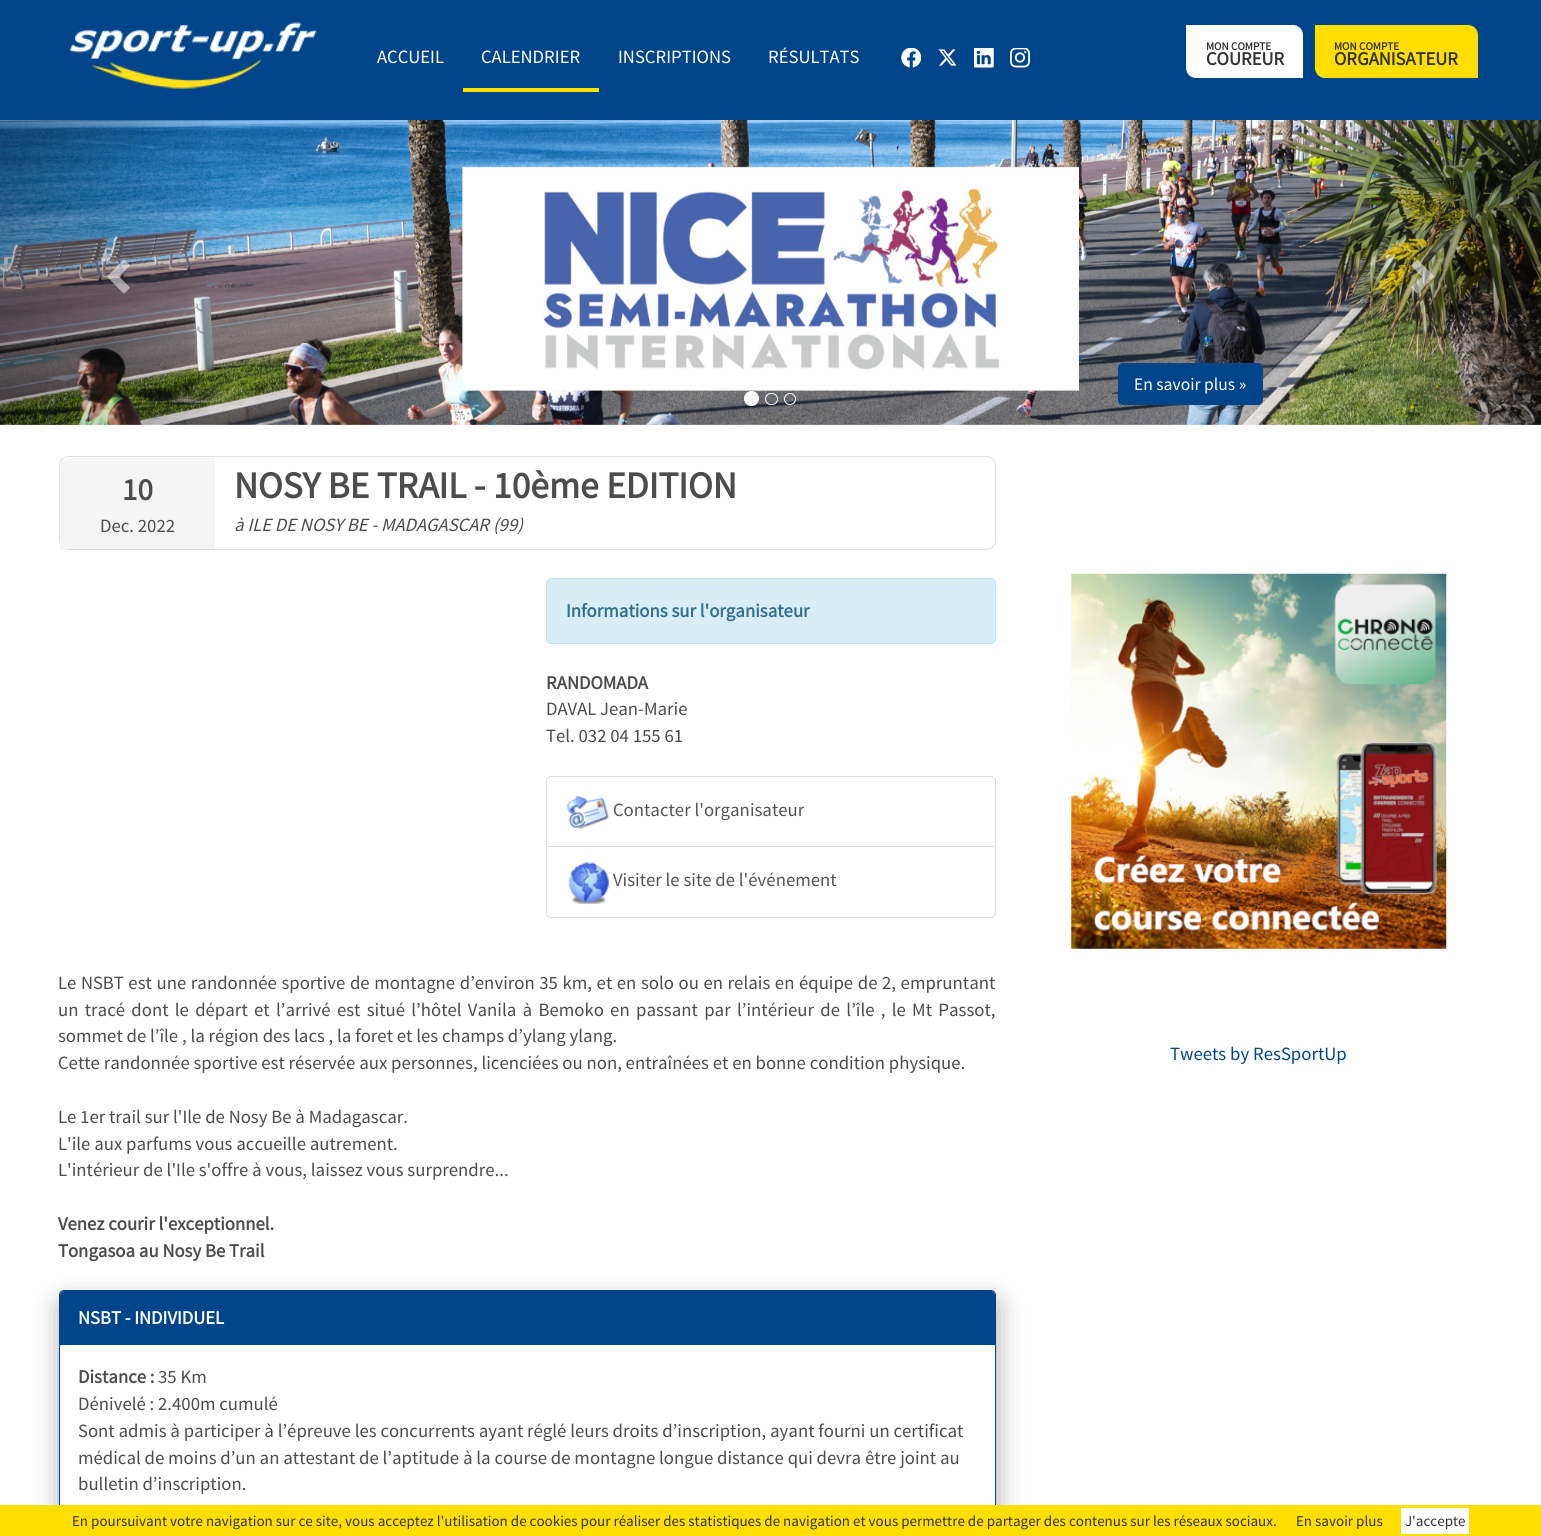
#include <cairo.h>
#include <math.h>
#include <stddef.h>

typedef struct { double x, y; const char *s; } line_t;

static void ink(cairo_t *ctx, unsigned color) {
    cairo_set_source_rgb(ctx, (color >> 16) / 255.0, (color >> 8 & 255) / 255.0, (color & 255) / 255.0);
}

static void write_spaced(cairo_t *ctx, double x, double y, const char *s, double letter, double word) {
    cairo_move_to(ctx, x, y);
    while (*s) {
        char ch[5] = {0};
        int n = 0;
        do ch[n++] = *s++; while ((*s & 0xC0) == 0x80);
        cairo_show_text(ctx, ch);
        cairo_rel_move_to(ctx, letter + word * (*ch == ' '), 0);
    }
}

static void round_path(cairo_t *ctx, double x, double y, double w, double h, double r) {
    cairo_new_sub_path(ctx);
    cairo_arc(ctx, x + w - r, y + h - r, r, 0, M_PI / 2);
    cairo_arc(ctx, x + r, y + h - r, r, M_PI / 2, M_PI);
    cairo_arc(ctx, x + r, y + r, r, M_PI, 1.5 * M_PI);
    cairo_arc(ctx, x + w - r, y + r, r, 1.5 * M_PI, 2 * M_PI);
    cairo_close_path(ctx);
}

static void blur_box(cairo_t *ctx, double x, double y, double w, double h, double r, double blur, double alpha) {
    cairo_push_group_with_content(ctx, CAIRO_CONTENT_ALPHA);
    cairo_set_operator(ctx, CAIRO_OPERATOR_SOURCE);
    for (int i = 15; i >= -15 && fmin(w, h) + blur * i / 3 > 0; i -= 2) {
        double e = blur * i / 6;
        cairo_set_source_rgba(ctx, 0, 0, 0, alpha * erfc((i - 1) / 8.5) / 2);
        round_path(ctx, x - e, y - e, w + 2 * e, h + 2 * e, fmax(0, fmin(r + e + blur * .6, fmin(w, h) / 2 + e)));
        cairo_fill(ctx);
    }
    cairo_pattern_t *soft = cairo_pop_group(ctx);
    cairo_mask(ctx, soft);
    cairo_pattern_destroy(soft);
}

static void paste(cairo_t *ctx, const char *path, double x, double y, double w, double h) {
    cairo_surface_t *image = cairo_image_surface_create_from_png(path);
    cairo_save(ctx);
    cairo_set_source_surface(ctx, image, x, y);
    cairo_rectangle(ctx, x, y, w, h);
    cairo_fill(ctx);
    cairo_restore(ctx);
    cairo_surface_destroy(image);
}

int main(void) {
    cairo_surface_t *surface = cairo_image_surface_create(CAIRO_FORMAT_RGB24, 1541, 1536);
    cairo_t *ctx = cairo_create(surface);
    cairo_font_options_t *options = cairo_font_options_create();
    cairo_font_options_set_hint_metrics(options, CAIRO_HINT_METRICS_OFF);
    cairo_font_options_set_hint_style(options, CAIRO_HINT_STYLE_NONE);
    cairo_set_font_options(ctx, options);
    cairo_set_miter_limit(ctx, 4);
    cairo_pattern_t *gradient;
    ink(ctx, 0xFFFFFF);
    cairo_paint(ctx);
    ink(ctx, 0x004489);
    cairo_rectangle(ctx, 0, 0, 1541, 120);
    cairo_fill(ctx);
    paste(ctx, "media/1.png", 69, 22, 248, 67);
    cairo_select_font_face(ctx, "Source Sans Pro", CAIRO_FONT_SLANT_NORMAL, CAIRO_FONT_WEIGHT_NORMAL);
    cairo_set_font_size(ctx, 18.75);
    ink(ctx, 0xFFFFFF);
    cairo_move_to(ctx, 377, 63);
    cairo_show_text(ctx, "ACCUEIL");
    ink(ctx, 0xFFDE00);
    cairo_rectangle(ctx, 463, 88, 136, 4);
    cairo_fill(ctx);
    ink(ctx, 0xFFFFFF);
    {
        static const line_t items[] = {
            {481, 63, "CALENDRIER"},
            {618, 63, "INSCRIPTIONS"},
            {768, 63, "RÉSULTATS"},
        };
        for (size_t i = 0; i < sizeof items / sizeof *items; i++) {
            cairo_move_to(ctx, items[i].x, items[i].y);
            cairo_show_text(ctx, items[i].s);
        }
    }
    paste(ctx, "media/2.png", 901, 48, 20, 20);
    paste(ctx, "media/3.png", 938, 49, 19, 17);
    paste(ctx, "media/4.png", 974, 48, 20, 20);
    paste(ctx, "media/5.png", 1010, 48, 20, 20);
    cairo_new_path(ctx);
    cairo_move_to(ctx, 1186, 25);
    cairo_line_to(ctx, 1293, 25);
    cairo_curve_to(ctx, 1298.5, 25, 1303, 29.5, 1303, 35);
    cairo_line_to(ctx, 1303, 78);
    cairo_line_to(ctx, 1196, 78);
    cairo_curve_to(ctx, 1190.5, 78, 1186, 73.5, 1186, 68);
    cairo_close_path(ctx);
    cairo_fill(ctx);
    cairo_select_font_face(ctx, "Source Sans Pro", CAIRO_FONT_SLANT_NORMAL, CAIRO_FONT_WEIGHT_BOLD);
    cairo_set_font_size(ctx, 11.25);
    ink(ctx, 0x333333);
    cairo_move_to(ctx, 1206, 50);
    cairo_show_text(ctx, "MON COMPTE");
    cairo_set_font_size(ctx, 18.75);
    cairo_move_to(ctx, 1206, 65);
    cairo_show_text(ctx, "COUREUR");
    ink(ctx, 0xFFDE00);
    cairo_new_path(ctx);
    cairo_move_to(ctx, 1315, 25);
    cairo_line_to(ctx, 1468, 25);
    cairo_curve_to(ctx, 1473.5, 25, 1478, 29.5, 1478, 35);
    cairo_line_to(ctx, 1478, 78);
    cairo_line_to(ctx, 1325, 78);
    cairo_curve_to(ctx, 1319.5, 78, 1315, 73.5, 1315, 68);
    cairo_close_path(ctx);
    cairo_fill(ctx);
    cairo_set_font_size(ctx, 11.25);
    ink(ctx, 0x333333);
    cairo_move_to(ctx, 1334, 50);
    cairo_show_text(ctx, "MON COMPTE");
    cairo_set_font_size(ctx, 18.75);
    cairo_move_to(ctx, 1334, 65);
    cairo_show_text(ctx, "ORGANISATEUR");
    paste(ctx, "media/6.png", 0, 120, 1541, 305);
    gradient = cairo_pattern_create_linear(0, 269, 231, 269);
    cairo_pattern_add_color_stop_rgba(gradient, 0, 0, 0, 0, 0.25);
    cairo_pattern_add_color_stop_rgba(gradient, 1, 0, 0, 0, 0);
    cairo_set_source(ctx, gradient);
    cairo_pattern_destroy(gradient);
    cairo_rectangle(ctx, 0, 120, 211, 305);
    cairo_fill(ctx);
    cairo_set_source_rgba(ctx, 1, 1, 1, 0.5);
    cairo_new_path(ctx);
    cairo_move_to(ctx, 130, 265.5);
    cairo_line_to(ctx, 119, 276.5);
    cairo_line_to(ctx, 130, 287.5);
    cairo_line_to(ctx, 124, 294);
    cairo_line_to(ctx, 107, 276.5);
    cairo_line_to(ctx, 124, 259.5);
    cairo_close_path(ctx);
    cairo_fill(ctx);
    ink(ctx, 0x004489);
    round_path(ctx, 1118.5, 363.5, 144, 41, 4.5);
    cairo_fill_preserve(ctx);
    ink(ctx, 0x054688);
    cairo_set_line_width(ctx, 1);
    cairo_stroke(ctx);
    cairo_select_font_face(ctx, "Source Sans Pro", CAIRO_FONT_SLANT_NORMAL, CAIRO_FONT_WEIGHT_NORMAL);
    cairo_set_font_size(ctx, 17.5);
    ink(ctx, 0xFFFFFF);
    cairo_move_to(ctx, 1134, 390);
    cairo_show_text(ctx, "En savoir plus »");
    gradient = cairo_pattern_create_linear(1310, 269, 1541, 269);
    cairo_pattern_add_color_stop_rgba(gradient, 0, 0, 0, 0, 0);
    cairo_pattern_add_color_stop_rgba(gradient, 1, 0, 0, 0, 0.25);
    cairo_set_source(ctx, gradient);
    cairo_pattern_destroy(gradient);
    cairo_rectangle(ctx, 1330, 120, 211, 305);
    cairo_fill(ctx);
    cairo_set_source_rgba(ctx, 1, 1, 1, 0.5);
    cairo_new_path(ctx);
    cairo_move_to(ctx, 1434.5, 276.5);
    cairo_line_to(ctx, 1417.5, 294);
    cairo_line_to(ctx, 1411, 287.5);
    cairo_line_to(ctx, 1422, 276.5);
    cairo_line_to(ctx, 1411, 265.5);
    cairo_line_to(ctx, 1417.5, 259.5);
    cairo_close_path(ctx);
    cairo_fill(ctx);
    ink(ctx, 0xFFFFFF);
    cairo_arc(ctx, 751.5, 398.5, 7, 0, 2 * M_PI);
    cairo_fill_preserve(ctx);
    cairo_stroke(ctx);
    round_path(ctx, 765.5, 393.5, 12, 11, 5.5);
    cairo_stroke(ctx);
    cairo_arc(ctx, 790, 399, 5.5, 0, 2 * M_PI);
    cairo_stroke(ctx);
    round_path(ctx, 59.5, 456.5, 936, 93, 9.5);
    ink(ctx, 0xE1E1E1);
    cairo_stroke(ctx);
    ink(ctx, 0xF5F5F5);
    cairo_new_path(ctx);
    cairo_move_to(ctx, 70, 458);
    cairo_line_to(ctx, 215, 458);
    cairo_line_to(ctx, 215, 549);
    cairo_line_to(ctx, 60, 549);
    cairo_line_to(ctx, 60, 468);
    cairo_curve_to(ctx, 60, 462.5, 64.5, 458, 70, 458);
    cairo_close_path(ctx);
    cairo_fill(ctx);
    cairo_select_font_face(ctx, "Source Sans Pro", CAIRO_FONT_SLANT_NORMAL, CAIRO_FONT_WEIGHT_BOLD);
    cairo_set_font_size(ctx, 31);
    ink(ctx, 0x4C4C4C);
    cairo_move_to(ctx, 122, 500);
    cairo_show_text(ctx, "10");
    cairo_select_font_face(ctx, "Source Sans Pro", CAIRO_FONT_SLANT_NORMAL, CAIRO_FONT_WEIGHT_NORMAL);
    cairo_set_font_size(ctx, 18.75);
    cairo_move_to(ctx, 100, 532);
    cairo_show_text(ctx, "Dec. 2022");
    cairo_select_font_face(ctx, "Source Sans Pro", CAIRO_FONT_SLANT_NORMAL, CAIRO_FONT_WEIGHT_BOLD);
    cairo_set_font_size(ctx, 37.5);
    cairo_move_to(ctx, 234, 498);
    cairo_show_text(ctx, "NOSY BE TRAIL - 10ème EDITION");
    cairo_select_font_face(ctx, "Source Sans Pro", CAIRO_FONT_SLANT_ITALIC, CAIRO_FONT_WEIGHT_NORMAL);
    cairo_set_font_size(ctx, 18.75);
    cairo_move_to(ctx, 234, 531);
    cairo_show_text(ctx, "à ILE DE NOSY BE - MADAGASCAR (99)");
    ink(ctx, 0xD9EDF7);
    round_path(ctx, 546.5, 578.5, 449, 65, 4.5);
    cairo_fill_preserve(ctx);
    ink(ctx, 0xBCE8F1);
    cairo_stroke(ctx);
    cairo_select_font_face(ctx, "Source Sans Pro", CAIRO_FONT_SLANT_NORMAL, CAIRO_FONT_WEIGHT_BOLD);
    ink(ctx, 0x31708F);
    cairo_move_to(ctx, 566, 617);
    cairo_show_text(ctx, "Informations sur l'organisateur");
    ink(ctx, 0x4C4C4C);
    cairo_move_to(ctx, 546, 689);
    cairo_show_text(ctx, "RANDOMADA");
    cairo_select_font_face(ctx, "Source Sans Pro", CAIRO_FONT_SLANT_NORMAL, CAIRO_FONT_WEIGHT_NORMAL);
    cairo_move_to(ctx, 546, 715);
    cairo_show_text(ctx, "DAVAL Jean-Marie");
    cairo_move_to(ctx, 546, 742);
    cairo_show_text(ctx, "Tel. 032 04 155 61");
    cairo_new_path(ctx);
    cairo_move_to(ctx, 551, 776.5);
    cairo_line_to(ctx, 991, 776.5);
    cairo_curve_to(ctx, 993.5, 776.5, 995.5, 778.5, 995.5, 781);
    cairo_line_to(ctx, 995.5, 847.5);
    cairo_line_to(ctx, 546.5, 847.5);
    cairo_line_to(ctx, 546.5, 781);
    cairo_curve_to(ctx, 546.5, 778.5, 548.5, 776.5, 551, 776.5);
    cairo_close_path(ctx);
    ink(ctx, 0xDDDDDD);
    cairo_stroke(ctx);
    paste(ctx, "media/7.png", 566, 796, 43, 33);
    ink(ctx, 0x555555);
    cairo_move_to(ctx, 613, 816);
    cairo_show_text(ctx, "Contacter l'organisateur");
    ink(ctx, 0xFFFFFF);
    cairo_new_path(ctx);
    cairo_move_to(ctx, 546.5, 846.5);
    cairo_line_to(ctx, 995.5, 846.5);
    cairo_line_to(ctx, 995.5, 913);
    cairo_curve_to(ctx, 995.5, 915.5, 993.5, 917.5, 991, 917.5);
    cairo_line_to(ctx, 551, 917.5);
    cairo_curve_to(ctx, 548.5, 917.5, 546.5, 915.5, 546.5, 913);
    cairo_close_path(ctx);
    cairo_fill_preserve(ctx);
    ink(ctx, 0xDDDDDD);
    cairo_stroke(ctx);
    paste(ctx, "media/8.png", 568, 862, 41, 42);
    ink(ctx, 0x555555);
    cairo_move_to(ctx, 613, 886);
    cairo_show_text(ctx, "Visiter le site de l'événement");
    ink(ctx, 0x4C4C4C);
    write_spaced(ctx, 58, 989, "Le NSBT est une randonnée sportive de montagne d’environ 35 km, et en solo ou en relais en équipe de 2, empruntant", 0, 0.8);
    write_spaced(ctx, 58, 1016, "un tracé dont le départ et l’arrivé est situé l’hôtel Vanila à Bemoko en passant par l’intérieur de l’île , le Mt Passot,", 0, 2.5);
    {
        static const line_t items[] = {
            {58, 1042, "sommet de l’île , la région des lacs , la foret et les champs d’ylang ylang."},
            {58, 1069, "Cette randonnée sportive est réservée aux personnes, licenciées ou non, entraînées et en bonne condition physique."},
            {58, 1123, "Le 1er trail sur l'Ile de Nosy Be à Madagascar."},
            {58, 1150, "L'ile aux parfums vous accueille autrement."},
            {58, 1176, "L'intérieur de l'Ile s'offre à vous, laissez vous surprendre..."},
        };
        for (size_t i = 0; i < sizeof items / sizeof *items; i++) {
            cairo_move_to(ctx, items[i].x, items[i].y);
            cairo_show_text(ctx, items[i].s);
        }
    }
    cairo_select_font_face(ctx, "Source Sans Pro", CAIRO_FONT_SLANT_NORMAL, CAIRO_FONT_WEIGHT_BOLD);
    cairo_move_to(ctx, 58, 1230);
    cairo_show_text(ctx, "Venez courir l'exceptionnel.");
    cairo_move_to(ctx, 58, 1257);
    cairo_show_text(ctx, "Tongasoa au Nosy Be Trail");
    ink(ctx, 0x000000);
    blur_box(ctx, 59, 1301, 940, 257, 6, 12.5, 0.3);
    ink(ctx, 0xFFFFFF);
    round_path(ctx, 59.5, 1290.5, 936, 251, 4.5);
    cairo_fill_preserve(ctx);
    ink(ctx, 0x004489);
    cairo_stroke(ctx);
    cairo_new_path(ctx);
    cairo_move_to(ctx, 64, 1291);
    cairo_line_to(ctx, 991, 1291);
    cairo_curve_to(ctx, 993, 1291, 995, 1293, 995, 1295);
    cairo_line_to(ctx, 995, 1345);
    cairo_line_to(ctx, 60, 1345);
    cairo_line_to(ctx, 60, 1295);
    cairo_curve_to(ctx, 60, 1293, 62, 1291, 64, 1291);
    cairo_close_path(ctx);
    cairo_fill(ctx);
    ink(ctx, 0xFFFFFF);
    cairo_move_to(ctx, 78, 1324);
    cairo_show_text(ctx, "NSBT - INDIVIDUEL");
    ink(ctx, 0x4C4C4C);
    cairo_move_to(ctx, 78, 1383);
    cairo_show_text(ctx, "Distance :");
    cairo_select_font_face(ctx, "Source Sans Pro", CAIRO_FONT_SLANT_NORMAL, CAIRO_FONT_WEIGHT_NORMAL);
    {
        static const line_t items[] = {
            {158, 1383, "35 Km"},
            {78, 1410, "Dénivelé : 2.400m cumulé"},
            {78, 1437, "Sont admis à participer à l’épreuve les concurrents ayant réglé leurs droits d’inscription, ayant fourni un certificat"},
            {78, 1464, "médical de moins d’un an attestant de l’aptitude à la course de montagne longue distance qui devra être joint au"},
            {78, 1490, "bulletin d’inscription."},
        };
        for (size_t i = 0; i < sizeof items / sizeof *items; i++) {
            cairo_move_to(ctx, items[i].x, items[i].y);
            cairo_show_text(ctx, items[i].s);
        }
    }
    paste(ctx, "media/9.png", 1071, 573, 376, 376);
    ink(ctx, 0x03468A);
    cairo_move_to(ctx, 1170, 1060);
    cairo_show_text(ctx, "Tweets by ResSportUp");
    ink(ctx, 0xFFDE00);
    cairo_rectangle(ctx, 0, 1505, 1541, 31);
    cairo_fill(ctx);
    cairo_set_font_size(ctx, 15);
    ink(ctx, 0x333333);
    cairo_move_to(ctx, 72, 1526);
    cairo_show_text(ctx, "En poursuivant votre navigation sur ce site, vous acceptez l'utilisation de cookies pour réaliser des statistiques de navigation et vous permettre de partager des contenus sur les réseaux sociaux.");
    cairo_move_to(ctx, 1296, 1526);
    cairo_show_text(ctx, "En savoir plus");
    ink(ctx, 0xFFFFFF);
    cairo_rectangle(ctx, 1401, 1508, 68, 26);
    cairo_fill(ctx);
    ink(ctx, 0x333333);
    cairo_move_to(ctx, 1405, 1526);
    cairo_show_text(ctx, "J'accepte");
    cairo_surface_write_to_png(surface, "image.png");
    cairo_font_options_destroy(options);
    cairo_destroy(ctx);
    cairo_surface_destroy(surface);
    return 0;
}
